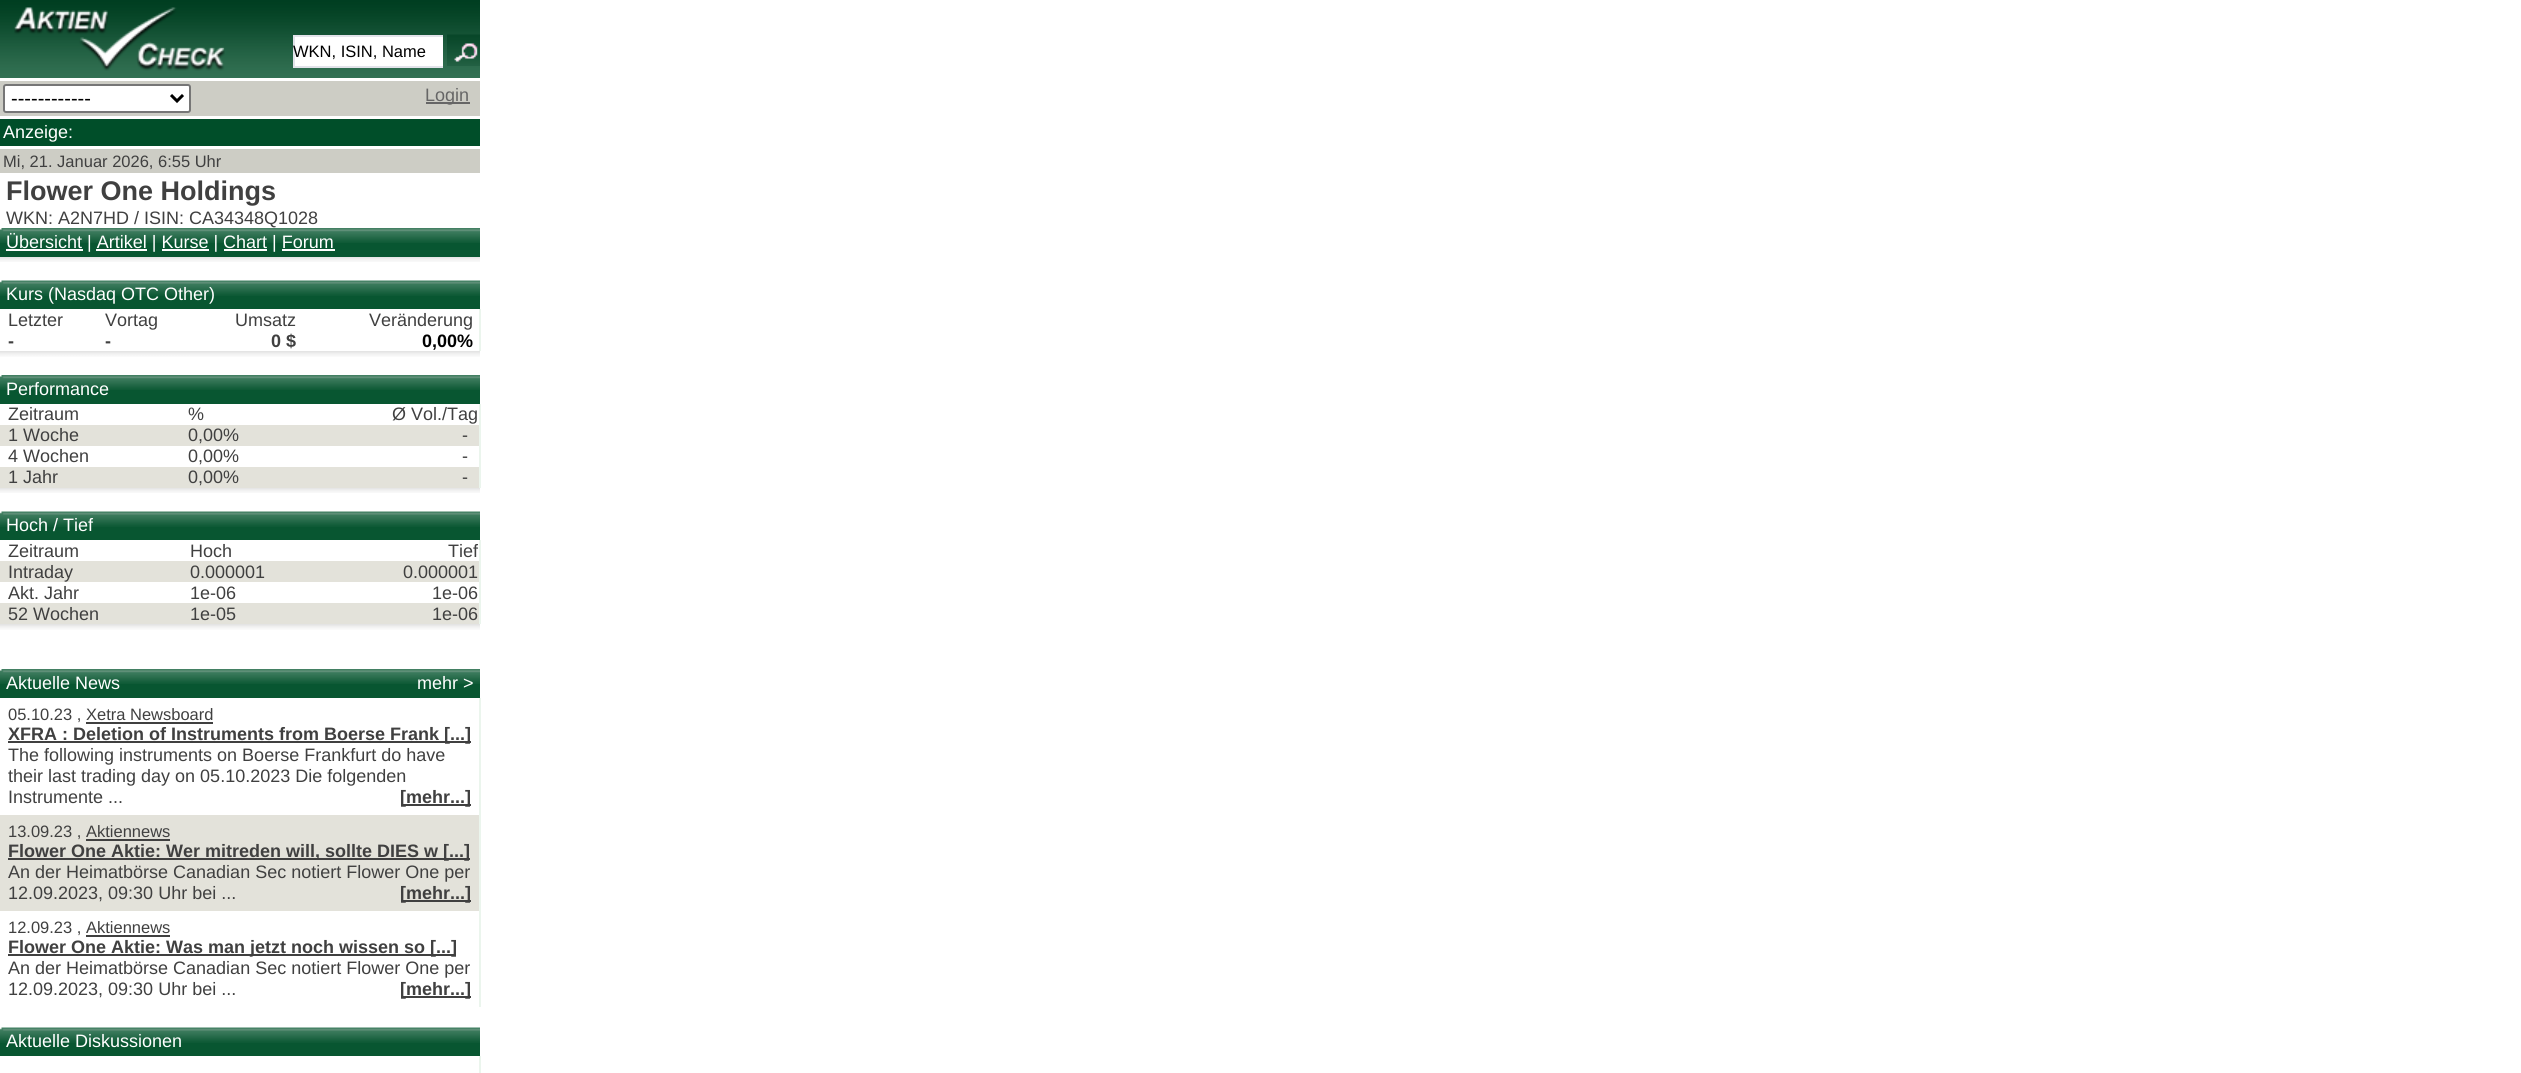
#include <cairo.h>
#include <math.h>
#include <stddef.h>

typedef struct { double x, y; const char *s; } line_t;
typedef struct { double x, y, w, h; unsigned color; } box_t;

static void ink(cairo_t *ctx, unsigned color) {
    cairo_set_source_rgb(ctx, (color >> 16) / 255.0, (color >> 8 & 255) / 255.0, (color & 255) / 255.0);
}

static void round_path(cairo_t *ctx, double x, double y, double w, double h, double r) {
    cairo_new_sub_path(ctx);
    cairo_arc(ctx, x + w - r, y + h - r, r, 0, M_PI / 2);
    cairo_arc(ctx, x + r, y + h - r, r, M_PI / 2, M_PI);
    cairo_arc(ctx, x + r, y + r, r, M_PI, 1.5 * M_PI);
    cairo_arc(ctx, x + w - r, y + r, r, 1.5 * M_PI, 2 * M_PI);
    cairo_close_path(ctx);
}

static void paste(cairo_t *ctx, const char *path, double x, double y, double w, double h) {
    cairo_surface_t *image = cairo_image_surface_create_from_png(path);
    cairo_save(ctx);
    cairo_set_source_surface(ctx, image, x, y);
    cairo_rectangle(ctx, x, y, w, h);
    cairo_fill(ctx);
    cairo_restore(ctx);
    cairo_surface_destroy(image);
}

int main(void) {
    cairo_surface_t *surface = cairo_image_surface_create(CAIRO_FORMAT_RGB24, 2521, 1073);
    cairo_t *ctx = cairo_create(surface);
    cairo_font_options_t *options = cairo_font_options_create();
    cairo_font_options_set_hint_metrics(options, CAIRO_HINT_METRICS_OFF);
    cairo_font_options_set_hint_style(options, CAIRO_HINT_STYLE_NONE);
    cairo_set_font_options(ctx, options);
    cairo_set_miter_limit(ctx, 4);
    ink(ctx, 0xFFFFFF);
    cairo_paint(ctx);
    paste(ctx, "media/1.png", 0, 0, 480, 78);
    paste(ctx, "media/2.png", 14, 7, 211, 64);
    {
        static const box_t items[] = {
            {295, 37, 148, 29, 0xFFFFFF},
            {293, 35, 150, 2, 0xE2E3EA},
            {293, 66, 150, 2, 0xE2E3EA},
            {293, 35, 2, 33, 0xE2E3EA},
        };
        for (size_t i = 0; i < sizeof items / sizeof *items; i++) {
            ink(ctx, items[i].color);
            cairo_rectangle(ctx, items[i].x, items[i].y, items[i].w, items[i].h);
            cairo_fill(ctx);
        }
    }
    cairo_select_font_face(ctx, "Liberation Sans", CAIRO_FONT_SLANT_NORMAL, CAIRO_FONT_WEIGHT_NORMAL);
    cairo_set_font_size(ctx, 16.5);
    ink(ctx, 0x000000);
    cairo_move_to(ctx, 293, 57);
    cairo_show_text(ctx, "WKN, ISIN, Name");
    paste(ctx, "media/3.png", 447, 34, 33, 32);
    ink(ctx, 0xCDCDC5);
    cairo_rectangle(ctx, 0, 81, 480, 35);
    cairo_fill(ctx);
    ink(ctx, 0xFFFFFF);
    round_path(ctx, 4, 85, 186, 27, 2);
    cairo_fill_preserve(ctx);
    ink(ctx, 0x767676);
    cairo_stroke(ctx);
    cairo_new_path(ctx);
    cairo_move_to(ctx, 171, 95);
    cairo_line_to(ctx, 177, 101);
    cairo_line_to(ctx, 183, 95);
    ink(ctx, 0x000000);
    cairo_set_line_width(ctx, 3);
    cairo_stroke(ctx);
    cairo_set_font_size(ctx, 20);
    cairo_move_to(ctx, 11, 105);
    cairo_show_text(ctx, "------------");
    ink(ctx, 0x666666);
    cairo_rectangle(ctx, 426, 102, 44, 2);
    cairo_fill(ctx);
    cairo_set_font_size(ctx, 18);
    cairo_move_to(ctx, 425, 101);
    cairo_show_text(ctx, "Login");
    ink(ctx, 0x004E29);
    cairo_rectangle(ctx, 0, 119, 480, 27);
    cairo_fill(ctx);
    ink(ctx, 0xFFFFFF);
    cairo_move_to(ctx, 3, 138);
    cairo_show_text(ctx, "Anzeige:");
    ink(ctx, 0xCDCDC5);
    cairo_rectangle(ctx, 0, 149, 480, 24);
    cairo_fill(ctx);
    cairo_set_font_size(ctx, 16.5);
    ink(ctx, 0x404040);
    cairo_move_to(ctx, 3, 167);
    cairo_show_text(ctx, "Mi, 21. Januar 2026, 6:55 Uhr");
    paste(ctx, "media/4.png", 0, 257, 480, 5);
    cairo_select_font_face(ctx, "Liberation Sans", CAIRO_FONT_SLANT_NORMAL, CAIRO_FONT_WEIGHT_BOLD);
    cairo_set_font_size(ctx, 27);
    cairo_move_to(ctx, 6, 200);
    cairo_show_text(ctx, "Flower One Holdings");
    cairo_select_font_face(ctx, "Liberation Sans", CAIRO_FONT_SLANT_NORMAL, CAIRO_FONT_WEIGHT_NORMAL);
    cairo_set_font_size(ctx, 18);
    cairo_move_to(ctx, 6, 224);
    cairo_show_text(ctx, "WKN: A2N7HD / ISIN: CA34348Q1028");
    ink(ctx, 0x085631);
    cairo_rectangle(ctx, 0, 243, 480, 14);
    cairo_fill(ctx);
    paste(ctx, "media/5.png", 0, 228, 480, 15);
    ink(ctx, 0xFFFFFF);
    cairo_rectangle(ctx, 6, 249, 77, 2);
    cairo_fill(ctx);
    cairo_move_to(ctx, 6, 248);
    cairo_show_text(ctx, "Übersicht | Artikel | Kurse | Chart | Forum");
    {
        static const box_t items[] = {
            {96, 249, 51, 2, 0xFFFFFF},
            {162, 249, 47, 2, 0xFFFFFF},
            {224, 249, 43, 2, 0xFFFFFF},
            {282, 249, 53, 2, 0xFFFFFF},
        };
        for (size_t i = 0; i < sizeof items / sizeof *items; i++) {
            ink(ctx, items[i].color);
            cairo_rectangle(ctx, items[i].x, items[i].y, items[i].w, items[i].h);
            cairo_fill(ctx);
        }
    }
    paste(ctx, "media/6.png", 0, 351, 480, 6);
    ink(ctx, 0x085631);
    cairo_rectangle(ctx, 0, 296, 480, 13);
    cairo_fill(ctx);
    paste(ctx, "media/7.png", 0, 280, 480, 16);
    ink(ctx, 0xFFFFFF);
    cairo_move_to(ctx, 6, 300);
    cairo_show_text(ctx, "Kurs (Nasdaq OTC Other)");
    ink(ctx, 0xEBF5ED);
    cairo_rectangle(ctx, 479, 309, 2, 42);
    cairo_fill(ctx);
    ink(ctx, 0x404040);
    {
        static const line_t items[] = {
            {8, 326, "Letzter"},
            {105, 326, "Vortag"},
            {235, 326, "Umsatz"},
            {369, 326, "Veränderung"},
        };
        for (size_t i = 0; i < sizeof items / sizeof *items; i++) {
            cairo_move_to(ctx, items[i].x, items[i].y);
            cairo_show_text(ctx, items[i].s);
        }
    }
    cairo_select_font_face(ctx, "Liberation Sans", CAIRO_FONT_SLANT_NORMAL, CAIRO_FONT_WEIGHT_BOLD);
    {
        static const line_t items[] = {
            {8, 347, "-"},
            {105, 347, "-"},
            {271, 347, "0 $"},
        };
        for (size_t i = 0; i < sizeof items / sizeof *items; i++) {
            cairo_move_to(ctx, items[i].x, items[i].y);
            cairo_show_text(ctx, items[i].s);
        }
    }
    ink(ctx, 0x000000);
    cairo_move_to(ctx, 422, 347);
    cairo_show_text(ctx, "0,00%");
    paste(ctx, "media/4.png", 0, 488, 480, 5);
    ink(ctx, 0x085631);
    cairo_rectangle(ctx, 0, 390, 480, 14);
    cairo_fill(ctx);
    paste(ctx, "media/5.png", 0, 375, 480, 15);
    cairo_select_font_face(ctx, "Liberation Sans", CAIRO_FONT_SLANT_NORMAL, CAIRO_FONT_WEIGHT_NORMAL);
    ink(ctx, 0xFFFFFF);
    cairo_move_to(ctx, 6, 395);
    cairo_show_text(ctx, "Performance");
    ink(ctx, 0xEBF5ED);
    cairo_rectangle(ctx, 479, 404, 2, 84);
    cairo_fill(ctx);
    ink(ctx, 0x404040);
    {
        static const line_t items[] = {
            {8, 420, "Zeitraum"},
            {188, 420, "%"},
            {392, 420, "Ø Vol./Tag"},
        };
        for (size_t i = 0; i < sizeof items / sizeof *items; i++) {
            cairo_move_to(ctx, items[i].x, items[i].y);
            cairo_show_text(ctx, items[i].s);
        }
    }
    ink(ctx, 0xE3E2DA);
    cairo_rectangle(ctx, 0, 425, 479, 21);
    cairo_fill(ctx);
    ink(ctx, 0x404040);
    {
        static const line_t items[] = {
            {8, 441, "1 Woche"},
            {188, 441, "0,00%"},
            {462, 441, "-"},
            {8, 462, "4 Wochen"},
            {188, 462, "0,00%"},
            {462, 462, "-"},
        };
        for (size_t i = 0; i < sizeof items / sizeof *items; i++) {
            cairo_move_to(ctx, items[i].x, items[i].y);
            cairo_show_text(ctx, items[i].s);
        }
    }
    ink(ctx, 0xE3E2DA);
    cairo_rectangle(ctx, 0, 467, 479, 21);
    cairo_fill(ctx);
    ink(ctx, 0x404040);
    {
        static const line_t items[] = {
            {8, 483, "1 Jahr"},
            {188, 483, "0,00%"},
            {462, 483, "-"},
        };
        for (size_t i = 0; i < sizeof items / sizeof *items; i++) {
            cairo_move_to(ctx, items[i].x, items[i].y);
            cairo_show_text(ctx, items[i].s);
        }
    }
    paste(ctx, "media/8.png", 0, 624, 480, 6);
    ink(ctx, 0x085631);
    cairo_rectangle(ctx, 0, 527, 480, 13);
    cairo_fill(ctx);
    paste(ctx, "media/7.png", 0, 511, 480, 16);
    ink(ctx, 0xFFFFFF);
    cairo_move_to(ctx, 6, 531);
    cairo_show_text(ctx, "Hoch / Tief");
    ink(ctx, 0xEBF5ED);
    cairo_rectangle(ctx, 479, 540, 2, 84);
    cairo_fill(ctx);
    ink(ctx, 0x404040);
    {
        static const line_t items[] = {
            {8, 557, "Zeitraum"},
            {190, 557, "Hoch"},
            {448, 557, "Tief"},
        };
        for (size_t i = 0; i < sizeof items / sizeof *items; i++) {
            cairo_move_to(ctx, items[i].x, items[i].y);
            cairo_show_text(ctx, items[i].s);
        }
    }
    ink(ctx, 0xE3E2DA);
    cairo_rectangle(ctx, 0, 561, 479, 21);
    cairo_fill(ctx);
    ink(ctx, 0x404040);
    {
        static const line_t items[] = {
            {8, 578, "Intraday"},
            {190, 578, "0.000001"},
            {403, 578, "0.000001"},
            {8, 599, "Akt. Jahr"},
            {190, 599, "1e-06"},
            {432, 599, "1e-06"},
        };
        for (size_t i = 0; i < sizeof items / sizeof *items; i++) {
            cairo_move_to(ctx, items[i].x, items[i].y);
            cairo_show_text(ctx, items[i].s);
        }
    }
    ink(ctx, 0xE3E2DA);
    cairo_rectangle(ctx, 0, 603, 479, 21);
    cairo_fill(ctx);
    ink(ctx, 0x404040);
    {
        static const line_t items[] = {
            {8, 620, "52 Wochen"},
            {190, 620, "1e-05"},
            {432, 620, "1e-06"},
        };
        for (size_t i = 0; i < sizeof items / sizeof *items; i++) {
            cairo_move_to(ctx, items[i].x, items[i].y);
            cairo_show_text(ctx, items[i].s);
        }
    }
    ink(ctx, 0x085631);
    cairo_rectangle(ctx, 0, 684, 480, 14);
    cairo_fill(ctx);
    paste(ctx, "media/5.png", 0, 669, 480, 15);
    ink(ctx, 0xFFFFFF);
    cairo_move_to(ctx, 6, 689);
    cairo_show_text(ctx, "Aktuelle News");
    cairo_move_to(ctx, 417, 689);
    cairo_show_text(ctx, "mehr >");
    ink(ctx, 0xEBF5ED);
    cairo_rectangle(ctx, 479, 698, 2, 309);
    cairo_fill(ctx);
    cairo_set_font_size(ctx, 16.5);
    ink(ctx, 0x404040);
    cairo_move_to(ctx, 8, 720);
    cairo_show_text(ctx, "05.10.23 , Xetra Newsboard");
    cairo_rectangle(ctx, 86, 722, 127, 2);
    cairo_fill(ctx);
    cairo_rectangle(ctx, 8, 741, 463, 2);
    cairo_fill(ctx);
    cairo_select_font_face(ctx, "Liberation Sans", CAIRO_FONT_SLANT_NORMAL, CAIRO_FONT_WEIGHT_BOLD);
    cairo_set_font_size(ctx, 18);
    cairo_move_to(ctx, 8, 740);
    cairo_show_text(ctx, "XFRA : Deletion of Instruments from Boerse Frank [...]");
    cairo_select_font_face(ctx, "Liberation Sans", CAIRO_FONT_SLANT_NORMAL, CAIRO_FONT_WEIGHT_NORMAL);
    {
        static const line_t items[] = {
            {8, 761, "The following instruments on Boerse Frankfurt do have"},
            {8, 782, "their last trading day on 05.10.2023 Die folgenden"},
            {8, 803, "Instrumente ..."},
        };
        for (size_t i = 0; i < sizeof items / sizeof *items; i++) {
            cairo_move_to(ctx, items[i].x, items[i].y);
            cairo_show_text(ctx, items[i].s);
        }
    }
    cairo_rectangle(ctx, 401, 804, 70, 2);
    cairo_fill(ctx);
    cairo_select_font_face(ctx, "Liberation Sans", CAIRO_FONT_SLANT_NORMAL, CAIRO_FONT_WEIGHT_BOLD);
    cairo_move_to(ctx, 400, 803);
    cairo_show_text(ctx, "[mehr...]");
    ink(ctx, 0xE3E2DA);
    cairo_rectangle(ctx, 0, 815, 479, 96);
    cairo_fill(ctx);
    cairo_select_font_face(ctx, "Liberation Sans", CAIRO_FONT_SLANT_NORMAL, CAIRO_FONT_WEIGHT_NORMAL);
    cairo_set_font_size(ctx, 16.5);
    ink(ctx, 0x404040);
    cairo_move_to(ctx, 8, 837);
    cairo_show_text(ctx, "13.09.23 , Aktiennews");
    cairo_rectangle(ctx, 86, 839, 84, 2);
    cairo_fill(ctx);
    cairo_rectangle(ctx, 8, 858, 462, 2);
    cairo_fill(ctx);
    cairo_select_font_face(ctx, "Liberation Sans", CAIRO_FONT_SLANT_NORMAL, CAIRO_FONT_WEIGHT_BOLD);
    cairo_set_font_size(ctx, 18);
    cairo_move_to(ctx, 8, 857);
    cairo_show_text(ctx, "Flower One Aktie: Wer mitreden will, sollte DIES w [...]");
    cairo_select_font_face(ctx, "Liberation Sans", CAIRO_FONT_SLANT_NORMAL, CAIRO_FONT_WEIGHT_NORMAL);
    cairo_move_to(ctx, 8, 878);
    cairo_show_text(ctx, "An der Heimatbörse Canadian Sec notiert Flower One per");
    cairo_move_to(ctx, 8, 899);
    cairo_show_text(ctx, "12.09.2023, 09:30 Uhr bei ...");
    cairo_rectangle(ctx, 401, 900, 70, 2);
    cairo_fill(ctx);
    cairo_select_font_face(ctx, "Liberation Sans", CAIRO_FONT_SLANT_NORMAL, CAIRO_FONT_WEIGHT_BOLD);
    cairo_move_to(ctx, 400, 899);
    cairo_show_text(ctx, "[mehr...]");
    cairo_select_font_face(ctx, "Liberation Sans", CAIRO_FONT_SLANT_NORMAL, CAIRO_FONT_WEIGHT_NORMAL);
    cairo_set_font_size(ctx, 16.5);
    cairo_move_to(ctx, 8, 933);
    cairo_show_text(ctx, "12.09.23 , Aktiennews");
    cairo_rectangle(ctx, 86, 935, 84, 2);
    cairo_fill(ctx);
    cairo_rectangle(ctx, 8, 954, 448, 2);
    cairo_fill(ctx);
    cairo_select_font_face(ctx, "Liberation Sans", CAIRO_FONT_SLANT_NORMAL, CAIRO_FONT_WEIGHT_BOLD);
    cairo_set_font_size(ctx, 18);
    cairo_move_to(ctx, 8, 953);
    cairo_show_text(ctx, "Flower One Aktie: Was man jetzt noch wissen so [...]");
    cairo_select_font_face(ctx, "Liberation Sans", CAIRO_FONT_SLANT_NORMAL, CAIRO_FONT_WEIGHT_NORMAL);
    cairo_move_to(ctx, 8, 974);
    cairo_show_text(ctx, "An der Heimatbörse Canadian Sec notiert Flower One per");
    cairo_move_to(ctx, 8, 995);
    cairo_show_text(ctx, "12.09.2023, 09:30 Uhr bei ...");
    cairo_rectangle(ctx, 401, 996, 70, 2);
    cairo_fill(ctx);
    cairo_select_font_face(ctx, "Liberation Sans", CAIRO_FONT_SLANT_NORMAL, CAIRO_FONT_WEIGHT_BOLD);
    cairo_move_to(ctx, 400, 995);
    cairo_show_text(ctx, "[mehr...]");
    ink(ctx, 0x085631);
    cairo_rectangle(ctx, 0, 1043, 480, 13);
    cairo_fill(ctx);
    paste(ctx, "media/7.png", 0, 1027, 480, 16);
    cairo_select_font_face(ctx, "Liberation Sans", CAIRO_FONT_SLANT_NORMAL, CAIRO_FONT_WEIGHT_NORMAL);
    ink(ctx, 0xFFFFFF);
    cairo_move_to(ctx, 6, 1047);
    cairo_show_text(ctx, "Aktuelle Diskussionen");
    ink(ctx, 0xEBF5ED);
    cairo_rectangle(ctx, 479, 1056, 2, 17);
    cairo_fill(ctx);
    cairo_surface_write_to_png(surface, "image.png");
    cairo_font_options_destroy(options);
    cairo_destroy(ctx);
    cairo_surface_destroy(surface);
    return 0;
}
